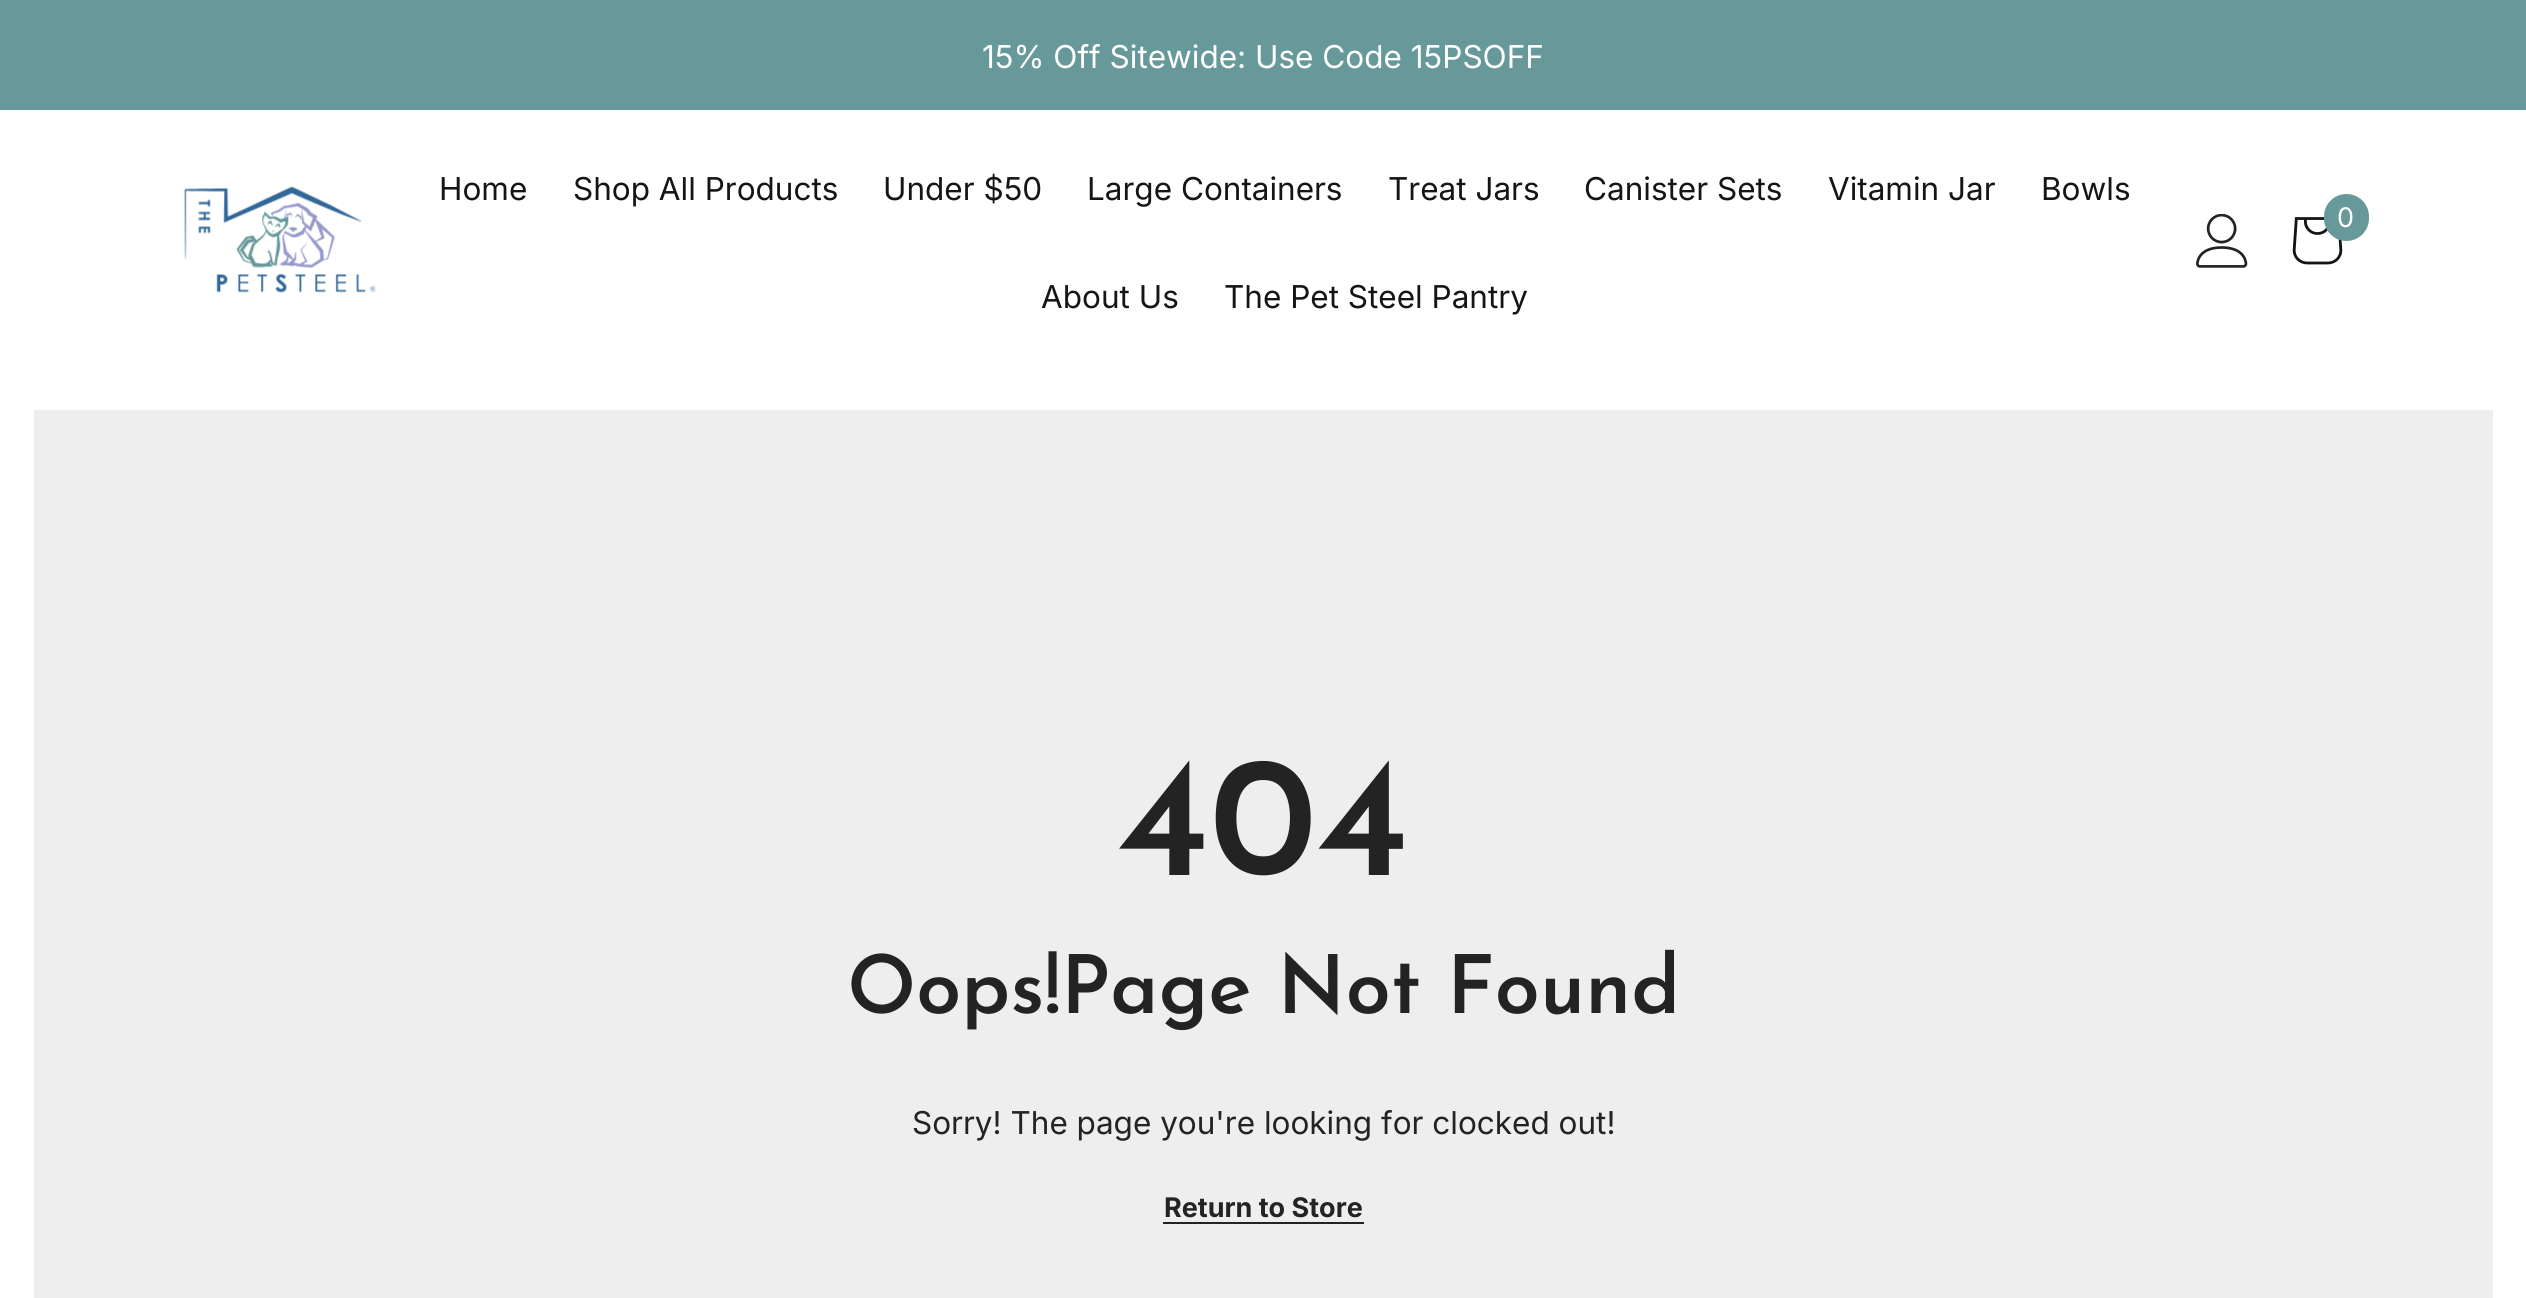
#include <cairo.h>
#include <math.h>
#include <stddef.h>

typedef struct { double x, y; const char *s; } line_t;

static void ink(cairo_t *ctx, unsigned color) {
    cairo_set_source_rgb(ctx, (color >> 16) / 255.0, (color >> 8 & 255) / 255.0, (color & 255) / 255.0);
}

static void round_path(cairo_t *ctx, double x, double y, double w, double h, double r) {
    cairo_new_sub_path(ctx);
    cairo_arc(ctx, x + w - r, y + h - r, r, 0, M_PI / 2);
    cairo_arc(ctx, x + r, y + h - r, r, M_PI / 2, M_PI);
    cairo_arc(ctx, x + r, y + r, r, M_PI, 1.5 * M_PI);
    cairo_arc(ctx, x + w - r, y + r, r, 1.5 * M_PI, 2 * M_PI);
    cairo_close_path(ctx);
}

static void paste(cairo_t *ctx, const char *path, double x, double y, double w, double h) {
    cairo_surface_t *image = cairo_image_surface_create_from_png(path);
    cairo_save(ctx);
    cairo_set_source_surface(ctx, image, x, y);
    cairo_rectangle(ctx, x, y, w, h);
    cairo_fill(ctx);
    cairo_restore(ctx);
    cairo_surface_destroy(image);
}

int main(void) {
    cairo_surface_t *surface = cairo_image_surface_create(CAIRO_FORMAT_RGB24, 2526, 1298);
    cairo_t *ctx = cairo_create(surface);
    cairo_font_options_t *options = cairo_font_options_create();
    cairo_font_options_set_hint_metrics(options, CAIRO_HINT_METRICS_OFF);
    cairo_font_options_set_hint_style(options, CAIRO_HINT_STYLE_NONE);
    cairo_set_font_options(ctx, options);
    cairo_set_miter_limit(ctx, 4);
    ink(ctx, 0xFFFFFF);
    cairo_paint(ctx);
    ink(ctx, 0x67999A);
    cairo_rectangle(ctx, 0, 0, 2526, 110);
    cairo_fill(ctx);
    cairo_select_font_face(ctx, "Inter", CAIRO_FONT_SLANT_NORMAL, CAIRO_FONT_WEIGHT_NORMAL);
    cairo_set_font_size(ctx, 31.5);
    ink(ctx, 0xFFFFFF);
    cairo_move_to(ctx, 982, 68);
    cairo_show_text(ctx, "15% Off Sitewide: Use Code 15PSOFF");
    paste(ctx, "media/1.png", 184, 186, 192, 107);
    ink(ctx, 0x151515);
    {
        static const line_t items[] = {
            {439, 200, "Home"},
            {573, 200, "Shop All Products"},
            {883, 200, "Under $50"},
            {1087, 200, "Large Containers"},
            {1388, 200, "Treat Jars"},
            {1584, 200, "Canister Sets"},
            {1828, 200, "Vitamin Jar"},
            {2041, 200, "Bowls"},
            {1041, 308, "About Us"},
            {1224, 308, "The Pet Steel Pantry"},
        };
        for (size_t i = 0; i < sizeof items / sizeof *items; i++) {
            cairo_move_to(ctx, items[i].x, items[i].y);
            cairo_show_text(ctx, items[i].s);
        }
    }
    paste(ctx, "media/2.png", 2196, 214, 52, 54);
    paste(ctx, "media/3.png", 2292, 217, 51, 48);
    ink(ctx, 0x67999A);
    round_path(ctx, 2324, 194, 45, 47, 22.5);
    cairo_fill(ctx);
    cairo_set_font_size(ctx, 27);
    ink(ctx, 0xFFFFFF);
    cairo_move_to(ctx, 2337, 227);
    cairo_show_text(ctx, "0");
    ink(ctx, 0xEEEEEE);
    cairo_rectangle(ctx, 34, 410, 2459, 888);
    cairo_fill(ctx);
    cairo_select_font_face(ctx, "Josefin Sans SemiBold", CAIRO_FONT_SLANT_NORMAL, CAIRO_FONT_WEIGHT_NORMAL);
    cairo_set_font_size(ctx, 171);
    ink(ctx, 0x232323);
    cairo_move_to(ctx, 1117, 875);
    cairo_show_text(ctx, "404");
    cairo_set_font_size(ctx, 81);
    cairo_move_to(ctx, 847, 1013);
    cairo_show_text(ctx, "Oops!Page Not Found");
    cairo_select_font_face(ctx, "Inter", CAIRO_FONT_SLANT_NORMAL, CAIRO_FONT_WEIGHT_NORMAL);
    cairo_set_font_size(ctx, 31.5);
    cairo_move_to(ctx, 912, 1134);
    cairo_show_text(ctx, "Sorry! The page you're looking for clocked out!");
    cairo_select_font_face(ctx, "Inter", CAIRO_FONT_SLANT_NORMAL, CAIRO_FONT_WEIGHT_BOLD);
    cairo_set_font_size(ctx, 27);
    cairo_move_to(ctx, 1164, 1217);
    cairo_show_text(ctx, "Return to Store");
    cairo_rectangle(ctx, 1163, 1222, 201, 2);
    cairo_fill(ctx);
    cairo_surface_write_to_png(surface, "image.png");
    cairo_font_options_destroy(options);
    cairo_destroy(ctx);
    cairo_surface_destroy(surface);
    return 0;
}
